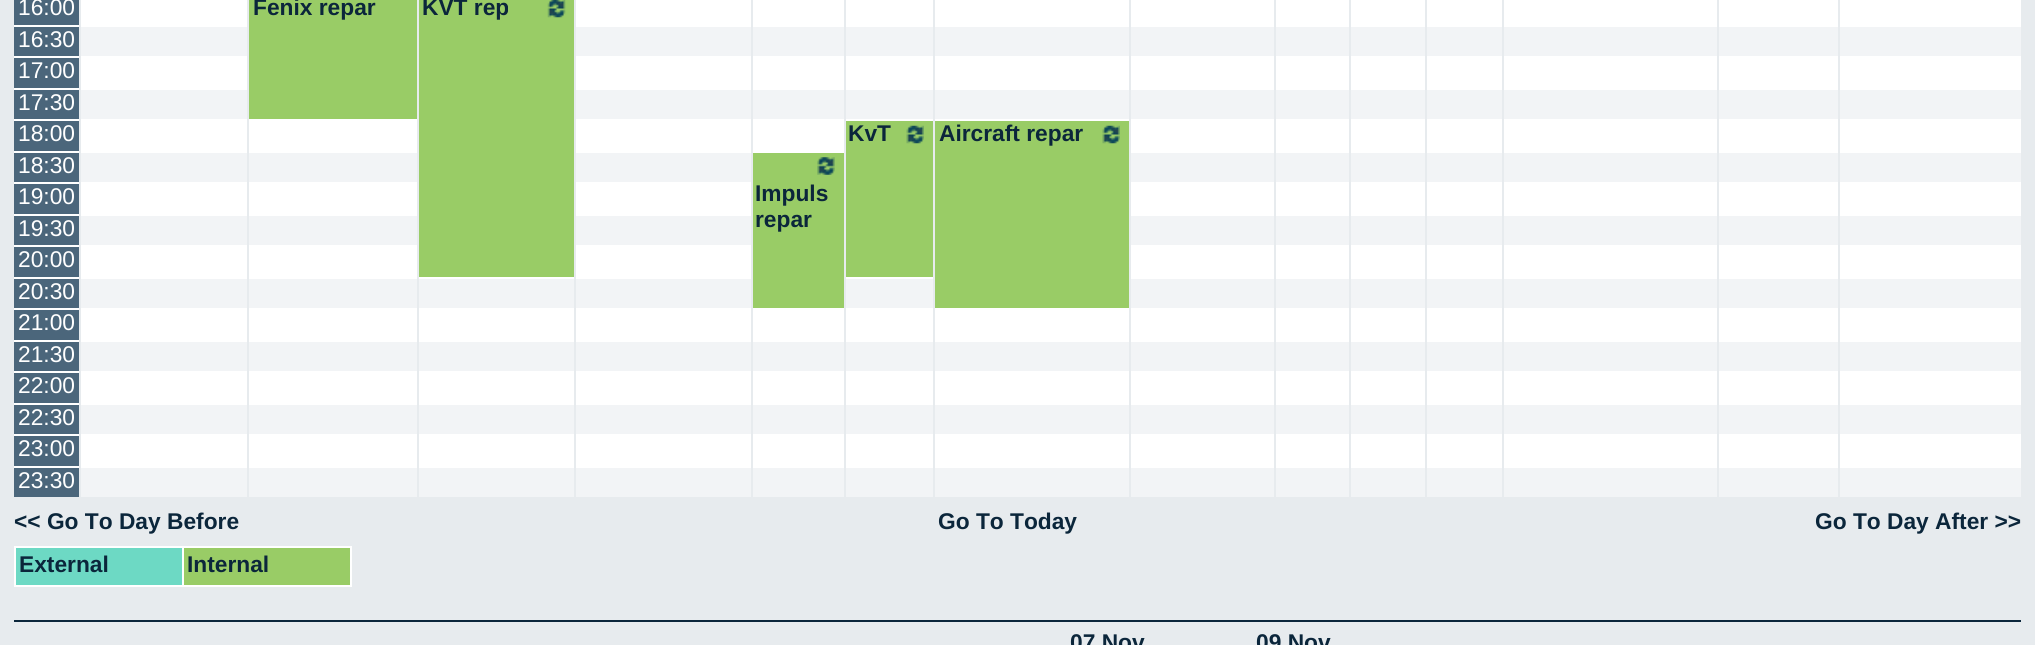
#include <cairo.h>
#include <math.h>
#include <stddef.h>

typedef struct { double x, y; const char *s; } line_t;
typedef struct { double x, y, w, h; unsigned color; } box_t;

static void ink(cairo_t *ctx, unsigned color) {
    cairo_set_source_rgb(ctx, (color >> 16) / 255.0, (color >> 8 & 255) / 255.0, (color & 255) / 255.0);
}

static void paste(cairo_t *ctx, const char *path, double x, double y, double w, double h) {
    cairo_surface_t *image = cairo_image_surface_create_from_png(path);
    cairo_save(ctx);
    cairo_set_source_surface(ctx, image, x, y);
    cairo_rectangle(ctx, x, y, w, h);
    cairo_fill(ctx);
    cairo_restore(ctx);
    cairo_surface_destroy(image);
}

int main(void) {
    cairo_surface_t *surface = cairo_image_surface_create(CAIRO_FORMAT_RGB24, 2035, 645);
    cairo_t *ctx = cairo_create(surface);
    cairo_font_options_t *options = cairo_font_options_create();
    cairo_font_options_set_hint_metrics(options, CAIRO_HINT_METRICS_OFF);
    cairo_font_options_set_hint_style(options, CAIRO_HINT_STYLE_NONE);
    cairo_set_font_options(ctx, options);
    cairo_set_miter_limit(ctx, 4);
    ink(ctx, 0xE7EBEE);
    cairo_paint(ctx);
    ink(ctx, 0x4B667B);
    cairo_rectangle(ctx, 14, 0, 65, 25);
    cairo_fill(ctx);
    cairo_select_font_face(ctx, "Liberation Sans", CAIRO_FONT_SLANT_NORMAL, CAIRO_FONT_WEIGHT_NORMAL);
    cairo_set_font_size(ctx, 22.75);
    ink(ctx, 0xFFFFFF);
    cairo_move_to(ctx, 18, 15);
    cairo_show_text(ctx, "16:00");
    cairo_rectangle(ctx, 81, 0, 166, 25);
    cairo_fill(ctx);
    ink(ctx, 0x99CC66);
    cairo_rectangle(ctx, 249, 0, 168, 119);
    cairo_fill(ctx);
    cairo_select_font_face(ctx, "Liberation Sans", CAIRO_FONT_SLANT_NORMAL, CAIRO_FONT_WEIGHT_BOLD);
    ink(ctx, 0x0B263B);
    cairo_move_to(ctx, 253, 15);
    cairo_show_text(ctx, "Fenix repar");
    ink(ctx, 0x99CC66);
    cairo_rectangle(ctx, 419, 0, 155, 277);
    cairo_fill(ctx);
    ink(ctx, 0x0B263B);
    cairo_move_to(ctx, 422, 15);
    cairo_show_text(ctx, "KVT rep");
    paste(ctx, "media/1.png", 547, 0, 19, 18);
    {
        static const box_t items[] = {
            {576, 0, 175, 25, 0xFFFFFF},
            {753, 0, 91, 25, 0xFFFFFF},
            {846, 0, 87, 25, 0xFFFFFF},
            {935, 0, 194, 25, 0xFFFFFF},
            {1131, 0, 143, 25, 0xFFFFFF},
            {1276, 0, 73, 25, 0xFFFFFF},
            {1351, 0, 74, 25, 0xFFFFFF},
            {1427, 0, 75, 25, 0xFFFFFF},
            {1504, 0, 213, 25, 0xFFFFFF},
            {1719, 0, 119, 25, 0xFFFFFF},
            {1840, 0, 181, 25, 0xFFFFFF},
            {81, 27, 166, 29, 0xF2F4F6},
            {14, 25, 233, 2, 0xFFFFFF},
            {79, 25, 2, 2, 0xE7EBEE},
            {576, 27, 175, 29, 0xF2F4F6},
            {574, 25, 1447, 2, 0xFFFFFF},
            {574, 25, 2, 2, 0xE7EBEE},
            {14, 27, 65, 29, 0x4B667B},
        };
        for (size_t i = 0; i < sizeof items / sizeof *items; i++) {
            ink(ctx, items[i].color);
            cairo_rectangle(ctx, items[i].x, items[i].y, items[i].w, items[i].h);
            cairo_fill(ctx);
        }
    }
    cairo_select_font_face(ctx, "Liberation Sans", CAIRO_FONT_SLANT_NORMAL, CAIRO_FONT_WEIGHT_NORMAL);
    ink(ctx, 0xFFFFFF);
    cairo_move_to(ctx, 18, 47);
    cairo_show_text(ctx, "16:30");
    {
        static const box_t items[] = {
            {753, 27, 91, 29, 0xF2F4F6},
            {751, 25, 2, 2, 0xE7EBEE},
            {846, 27, 87, 29, 0xF2F4F6},
            {844, 25, 2, 2, 0xE7EBEE},
            {935, 27, 194, 29, 0xF2F4F6},
            {933, 25, 2, 2, 0xE7EBEE},
            {1131, 27, 143, 29, 0xF2F4F6},
            {1129, 25, 2, 2, 0xE7EBEE},
            {1276, 27, 73, 29, 0xF2F4F6},
            {1274, 25, 2, 2, 0xE7EBEE},
            {1351, 27, 74, 29, 0xF2F4F6},
            {1349, 25, 2, 2, 0xE7EBEE},
            {1427, 27, 75, 29, 0xF2F4F6},
            {1425, 25, 2, 2, 0xE7EBEE},
            {1504, 27, 213, 29, 0xF2F4F6},
            {1502, 25, 2, 2, 0xE7EBEE},
            {1719, 27, 119, 29, 0xF2F4F6},
            {1717, 25, 2, 2, 0xE7EBEE},
            {1840, 27, 181, 29, 0xF2F4F6},
            {1838, 25, 2, 2, 0xE7EBEE},
            {14, 58, 65, 30, 0x4B667B},
            {14, 56, 65, 2, 0xFFFFFF},
        };
        for (size_t i = 0; i < sizeof items / sizeof *items; i++) {
            ink(ctx, items[i].color);
            cairo_rectangle(ctx, items[i].x, items[i].y, items[i].w, items[i].h);
            cairo_fill(ctx);
        }
    }
    cairo_move_to(ctx, 18, 78);
    cairo_show_text(ctx, "17:00");
    {
        static const box_t items[] = {
            {81, 56, 166, 32, 0xFFFFFF},
            {576, 56, 175, 32, 0xFFFFFF},
            {753, 56, 91, 32, 0xFFFFFF},
            {846, 56, 87, 32, 0xFFFFFF},
            {935, 56, 194, 32, 0xFFFFFF},
            {1131, 56, 143, 32, 0xFFFFFF},
            {1276, 56, 73, 32, 0xFFFFFF},
            {1351, 56, 74, 32, 0xFFFFFF},
            {1427, 56, 75, 32, 0xFFFFFF},
            {1504, 56, 213, 32, 0xFFFFFF},
            {1719, 56, 119, 32, 0xFFFFFF},
            {1840, 56, 181, 32, 0xFFFFFF},
            {81, 90, 166, 29, 0xF2F4F6},
            {14, 88, 233, 2, 0xFFFFFF},
            {79, 88, 2, 2, 0xE7EBEE},
            {576, 90, 175, 29, 0xF2F4F6},
            {574, 88, 1447, 2, 0xFFFFFF},
            {574, 88, 2, 2, 0xE7EBEE},
            {14, 90, 65, 29, 0x4B667B},
        };
        for (size_t i = 0; i < sizeof items / sizeof *items; i++) {
            ink(ctx, items[i].color);
            cairo_rectangle(ctx, items[i].x, items[i].y, items[i].w, items[i].h);
            cairo_fill(ctx);
        }
    }
    ink(ctx, 0xFFFFFF);
    cairo_move_to(ctx, 18, 110);
    cairo_show_text(ctx, "17:30");
    {
        static const box_t items[] = {
            {753, 90, 91, 29, 0xF2F4F6},
            {751, 88, 2, 2, 0xE7EBEE},
            {846, 90, 87, 29, 0xF2F4F6},
            {844, 88, 2, 2, 0xE7EBEE},
            {935, 90, 194, 29, 0xF2F4F6},
            {933, 88, 2, 2, 0xE7EBEE},
            {1131, 90, 143, 29, 0xF2F4F6},
            {1129, 88, 2, 2, 0xE7EBEE},
            {1276, 90, 73, 29, 0xF2F4F6},
            {1274, 88, 2, 2, 0xE7EBEE},
            {1351, 90, 74, 29, 0xF2F4F6},
            {1349, 88, 2, 2, 0xE7EBEE},
            {1427, 90, 75, 29, 0xF2F4F6},
            {1425, 88, 2, 2, 0xE7EBEE},
            {1504, 90, 213, 29, 0xF2F4F6},
            {1502, 88, 2, 2, 0xE7EBEE},
            {1719, 90, 119, 29, 0xF2F4F6},
            {1717, 88, 2, 2, 0xE7EBEE},
            {1840, 90, 181, 29, 0xF2F4F6},
            {1838, 88, 2, 2, 0xE7EBEE},
            {14, 121, 65, 30, 0x4B667B},
            {14, 119, 65, 2, 0xFFFFFF},
        };
        for (size_t i = 0; i < sizeof items / sizeof *items; i++) {
            ink(ctx, items[i].color);
            cairo_rectangle(ctx, items[i].x, items[i].y, items[i].w, items[i].h);
            cairo_fill(ctx);
        }
    }
    cairo_move_to(ctx, 18, 141);
    cairo_show_text(ctx, "18:00");
    {
        static const box_t items[] = {
            {81, 119, 166, 32, 0xFFFFFF},
            {249, 119, 168, 32, 0xFFFFFF},
            {576, 119, 175, 32, 0xFFFFFF},
            {753, 119, 91, 32, 0xFFFFFF},
            {846, 121, 87, 156, 0x99CC66},
            {844, 119, 285, 2, 0xFFFFFF},
            {844, 119, 2, 2, 0xE7EBEE},
        };
        for (size_t i = 0; i < sizeof items / sizeof *items; i++) {
            ink(ctx, items[i].color);
            cairo_rectangle(ctx, items[i].x, items[i].y, items[i].w, items[i].h);
            cairo_fill(ctx);
        }
    }
    cairo_select_font_face(ctx, "Liberation Sans", CAIRO_FONT_SLANT_NORMAL, CAIRO_FONT_WEIGHT_BOLD);
    ink(ctx, 0x0B263B);
    cairo_move_to(ctx, 848, 141);
    cairo_show_text(ctx, "KvT");
    paste(ctx, "media/2.png", 906, 125, 18, 19);
    ink(ctx, 0x99CC66);
    cairo_rectangle(ctx, 935, 121, 194, 187);
    cairo_fill(ctx);
    ink(ctx, 0xE7EBEE);
    cairo_rectangle(ctx, 933, 119, 2, 2);
    cairo_fill(ctx);
    ink(ctx, 0x0B263B);
    cairo_move_to(ctx, 939, 141);
    cairo_show_text(ctx, "Aircraft repar");
    paste(ctx, "media/3.png", 1102, 125, 18, 19);
    {
        static const box_t items[] = {
            {1131, 119, 143, 32, 0xFFFFFF},
            {1276, 119, 73, 32, 0xFFFFFF},
            {1351, 119, 74, 32, 0xFFFFFF},
            {1427, 119, 75, 32, 0xFFFFFF},
            {1504, 119, 213, 32, 0xFFFFFF},
            {1719, 119, 119, 32, 0xFFFFFF},
            {1840, 119, 181, 32, 0xFFFFFF},
            {81, 153, 166, 29, 0xF2F4F6},
            {14, 151, 403, 2, 0xFFFFFF},
            {79, 151, 2, 2, 0xE7EBEE},
            {249, 153, 168, 29, 0xF2F4F6},
            {247, 151, 2, 2, 0xE7EBEE},
            {576, 153, 175, 29, 0xF2F4F6},
            {574, 151, 270, 2, 0xFFFFFF},
            {574, 151, 2, 2, 0xE7EBEE},
            {1131, 153, 143, 29, 0xF2F4F6},
            {1129, 151, 892, 2, 0xFFFFFF},
            {1129, 151, 2, 2, 0xE7EBEE},
            {14, 153, 65, 29, 0x4B667B},
        };
        for (size_t i = 0; i < sizeof items / sizeof *items; i++) {
            ink(ctx, items[i].color);
            cairo_rectangle(ctx, items[i].x, items[i].y, items[i].w, items[i].h);
            cairo_fill(ctx);
        }
    }
    cairo_select_font_face(ctx, "Liberation Sans", CAIRO_FONT_SLANT_NORMAL, CAIRO_FONT_WEIGHT_NORMAL);
    ink(ctx, 0xFFFFFF);
    cairo_move_to(ctx, 18, 173);
    cairo_show_text(ctx, "18:30");
    {
        static const box_t items[] = {
            {1276, 153, 73, 29, 0xF2F4F6},
            {1274, 151, 2, 2, 0xE7EBEE},
            {1351, 153, 74, 29, 0xF2F4F6},
            {1349, 151, 2, 2, 0xE7EBEE},
            {1427, 153, 75, 29, 0xF2F4F6},
            {1425, 151, 2, 2, 0xE7EBEE},
            {1504, 153, 213, 29, 0xF2F4F6},
            {1502, 151, 2, 2, 0xE7EBEE},
            {1719, 153, 119, 29, 0xF2F4F6},
            {1717, 151, 2, 2, 0xE7EBEE},
            {1840, 153, 181, 29, 0xF2F4F6},
            {1838, 151, 2, 2, 0xE7EBEE},
            {753, 153, 91, 155, 0x99CC66},
            {751, 151, 2, 2, 0xE7EBEE},
        };
        for (size_t i = 0; i < sizeof items / sizeof *items; i++) {
            ink(ctx, items[i].color);
            cairo_rectangle(ctx, items[i].x, items[i].y, items[i].w, items[i].h);
            cairo_fill(ctx);
        }
    }
    paste(ctx, "media/4.png", 817, 157, 18, 18);
    cairo_select_font_face(ctx, "Liberation Sans", CAIRO_FONT_SLANT_NORMAL, CAIRO_FONT_WEIGHT_BOLD);
    ink(ctx, 0x0B263B);
    cairo_move_to(ctx, 755, 201);
    cairo_show_text(ctx, "Impuls");
    cairo_move_to(ctx, 755, 227);
    cairo_show_text(ctx, "repar");
    ink(ctx, 0x4B667B);
    cairo_rectangle(ctx, 14, 184, 65, 30);
    cairo_fill(ctx);
    ink(ctx, 0xFFFFFF);
    cairo_rectangle(ctx, 14, 182, 65, 2);
    cairo_fill(ctx);
    cairo_select_font_face(ctx, "Liberation Sans", CAIRO_FONT_SLANT_NORMAL, CAIRO_FONT_WEIGHT_NORMAL);
    cairo_move_to(ctx, 18, 204);
    cairo_show_text(ctx, "19:00");
    {
        static const box_t items[] = {
            {81, 182, 166, 32, 0xFFFFFF},
            {249, 182, 168, 32, 0xFFFFFF},
            {576, 182, 175, 32, 0xFFFFFF},
            {1131, 182, 143, 32, 0xFFFFFF},
            {1276, 182, 73, 32, 0xFFFFFF},
            {1351, 182, 74, 32, 0xFFFFFF},
            {1427, 182, 75, 32, 0xFFFFFF},
            {1504, 182, 213, 32, 0xFFFFFF},
            {1719, 182, 119, 32, 0xFFFFFF},
            {1840, 182, 181, 32, 0xFFFFFF},
            {81, 216, 166, 29, 0xF2F4F6},
            {14, 214, 403, 2, 0xFFFFFF},
            {79, 214, 2, 2, 0xE7EBEE},
            {249, 216, 168, 29, 0xF2F4F6},
            {247, 214, 2, 2, 0xE7EBEE},
            {576, 216, 175, 29, 0xF2F4F6},
            {574, 214, 177, 2, 0xFFFFFF},
            {574, 214, 2, 2, 0xE7EBEE},
            {1131, 216, 143, 29, 0xF2F4F6},
            {1129, 214, 892, 2, 0xFFFFFF},
            {1129, 214, 2, 2, 0xE7EBEE},
            {14, 216, 65, 29, 0x4B667B},
        };
        for (size_t i = 0; i < sizeof items / sizeof *items; i++) {
            ink(ctx, items[i].color);
            cairo_rectangle(ctx, items[i].x, items[i].y, items[i].w, items[i].h);
            cairo_fill(ctx);
        }
    }
    ink(ctx, 0xFFFFFF);
    cairo_move_to(ctx, 18, 236);
    cairo_show_text(ctx, "19:30");
    {
        static const box_t items[] = {
            {1276, 216, 73, 29, 0xF2F4F6},
            {1274, 214, 2, 2, 0xE7EBEE},
            {1351, 216, 74, 29, 0xF2F4F6},
            {1349, 214, 2, 2, 0xE7EBEE},
            {1427, 216, 75, 29, 0xF2F4F6},
            {1425, 214, 2, 2, 0xE7EBEE},
            {1504, 216, 213, 29, 0xF2F4F6},
            {1502, 214, 2, 2, 0xE7EBEE},
            {1719, 216, 119, 29, 0xF2F4F6},
            {1717, 214, 2, 2, 0xE7EBEE},
            {1840, 216, 181, 29, 0xF2F4F6},
            {1838, 214, 2, 2, 0xE7EBEE},
            {14, 247, 65, 30, 0x4B667B},
            {14, 245, 65, 2, 0xFFFFFF},
        };
        for (size_t i = 0; i < sizeof items / sizeof *items; i++) {
            ink(ctx, items[i].color);
            cairo_rectangle(ctx, items[i].x, items[i].y, items[i].w, items[i].h);
            cairo_fill(ctx);
        }
    }
    cairo_move_to(ctx, 18, 267);
    cairo_show_text(ctx, "20:00");
    {
        static const box_t items[] = {
            {81, 245, 166, 32, 0xFFFFFF},
            {249, 245, 168, 32, 0xFFFFFF},
            {576, 245, 175, 32, 0xFFFFFF},
            {1131, 245, 143, 32, 0xFFFFFF},
            {1276, 245, 73, 32, 0xFFFFFF},
            {1351, 245, 74, 32, 0xFFFFFF},
            {1427, 245, 75, 32, 0xFFFFFF},
            {1504, 245, 213, 32, 0xFFFFFF},
            {1719, 245, 119, 32, 0xFFFFFF},
            {1840, 245, 181, 32, 0xFFFFFF},
            {81, 279, 166, 29, 0xF2F4F6},
            {14, 277, 737, 2, 0xFFFFFF},
            {79, 277, 2, 2, 0xE7EBEE},
            {249, 279, 168, 29, 0xF2F4F6},
            {247, 277, 2, 2, 0xE7EBEE},
            {419, 279, 155, 29, 0xF2F4F6},
            {417, 277, 2, 2, 0xE7EBEE},
            {576, 279, 175, 29, 0xF2F4F6},
            {574, 277, 2, 2, 0xE7EBEE},
            {846, 279, 87, 29, 0xF2F4F6},
            {844, 277, 89, 2, 0xFFFFFF},
            {844, 277, 2, 2, 0xE7EBEE},
            {1131, 279, 143, 29, 0xF2F4F6},
            {1129, 277, 892, 2, 0xFFFFFF},
            {1129, 277, 2, 2, 0xE7EBEE},
            {14, 279, 65, 29, 0x4B667B},
        };
        for (size_t i = 0; i < sizeof items / sizeof *items; i++) {
            ink(ctx, items[i].color);
            cairo_rectangle(ctx, items[i].x, items[i].y, items[i].w, items[i].h);
            cairo_fill(ctx);
        }
    }
    ink(ctx, 0xFFFFFF);
    cairo_move_to(ctx, 18, 299);
    cairo_show_text(ctx, "20:30");
    {
        static const box_t items[] = {
            {1276, 279, 73, 29, 0xF2F4F6},
            {1274, 277, 2, 2, 0xE7EBEE},
            {1351, 279, 74, 29, 0xF2F4F6},
            {1349, 277, 2, 2, 0xE7EBEE},
            {1427, 279, 75, 29, 0xF2F4F6},
            {1425, 277, 2, 2, 0xE7EBEE},
            {1504, 279, 213, 29, 0xF2F4F6},
            {1502, 277, 2, 2, 0xE7EBEE},
            {1719, 279, 119, 29, 0xF2F4F6},
            {1717, 277, 2, 2, 0xE7EBEE},
            {1840, 279, 181, 29, 0xF2F4F6},
            {1838, 277, 2, 2, 0xE7EBEE},
            {14, 310, 65, 30, 0x4B667B},
            {14, 308, 65, 2, 0xFFFFFF},
        };
        for (size_t i = 0; i < sizeof items / sizeof *items; i++) {
            ink(ctx, items[i].color);
            cairo_rectangle(ctx, items[i].x, items[i].y, items[i].w, items[i].h);
            cairo_fill(ctx);
        }
    }
    cairo_move_to(ctx, 18, 330);
    cairo_show_text(ctx, "21:00");
    {
        static const box_t items[] = {
            {81, 308, 166, 32, 0xFFFFFF},
            {249, 308, 168, 32, 0xFFFFFF},
            {419, 308, 155, 32, 0xFFFFFF},
            {576, 308, 175, 32, 0xFFFFFF},
            {753, 308, 91, 32, 0xFFFFFF},
            {846, 308, 87, 32, 0xFFFFFF},
            {935, 308, 194, 32, 0xFFFFFF},
            {1131, 308, 143, 32, 0xFFFFFF},
            {1276, 308, 73, 32, 0xFFFFFF},
            {1351, 308, 74, 32, 0xFFFFFF},
            {1427, 308, 75, 32, 0xFFFFFF},
            {1504, 308, 213, 32, 0xFFFFFF},
            {1719, 308, 119, 32, 0xFFFFFF},
            {1840, 308, 181, 32, 0xFFFFFF},
            {14, 342, 65, 29, 0x4B667B},
            {14, 340, 2007, 2, 0xFFFFFF},
        };
        for (size_t i = 0; i < sizeof items / sizeof *items; i++) {
            ink(ctx, items[i].color);
            cairo_rectangle(ctx, items[i].x, items[i].y, items[i].w, items[i].h);
            cairo_fill(ctx);
        }
    }
    cairo_move_to(ctx, 18, 362);
    cairo_show_text(ctx, "21:30");
    {
        static const box_t items[] = {
            {81, 342, 166, 29, 0xF2F4F6},
            {79, 340, 2, 2, 0xE7EBEE},
            {249, 342, 168, 29, 0xF2F4F6},
            {247, 340, 2, 2, 0xE7EBEE},
            {419, 342, 155, 29, 0xF2F4F6},
            {417, 340, 2, 2, 0xE7EBEE},
            {576, 342, 175, 29, 0xF2F4F6},
            {574, 340, 2, 2, 0xE7EBEE},
            {753, 342, 91, 29, 0xF2F4F6},
            {751, 340, 2, 2, 0xE7EBEE},
            {846, 342, 87, 29, 0xF2F4F6},
            {844, 340, 2, 2, 0xE7EBEE},
            {935, 342, 194, 29, 0xF2F4F6},
            {933, 340, 2, 2, 0xE7EBEE},
            {1131, 342, 143, 29, 0xF2F4F6},
            {1129, 340, 2, 2, 0xE7EBEE},
            {1276, 342, 73, 29, 0xF2F4F6},
            {1274, 340, 2, 2, 0xE7EBEE},
            {1351, 342, 74, 29, 0xF2F4F6},
            {1349, 340, 2, 2, 0xE7EBEE},
            {1427, 342, 75, 29, 0xF2F4F6},
            {1425, 340, 2, 2, 0xE7EBEE},
            {1504, 342, 213, 29, 0xF2F4F6},
            {1502, 340, 2, 2, 0xE7EBEE},
            {1719, 342, 119, 29, 0xF2F4F6},
            {1717, 340, 2, 2, 0xE7EBEE},
            {1840, 342, 181, 29, 0xF2F4F6},
            {1838, 340, 2, 2, 0xE7EBEE},
            {14, 373, 65, 30, 0x4B667B},
            {14, 371, 65, 2, 0xFFFFFF},
        };
        for (size_t i = 0; i < sizeof items / sizeof *items; i++) {
            ink(ctx, items[i].color);
            cairo_rectangle(ctx, items[i].x, items[i].y, items[i].w, items[i].h);
            cairo_fill(ctx);
        }
    }
    cairo_move_to(ctx, 18, 393);
    cairo_show_text(ctx, "22:00");
    {
        static const box_t items[] = {
            {81, 371, 166, 32, 0xFFFFFF},
            {249, 371, 168, 32, 0xFFFFFF},
            {419, 371, 155, 32, 0xFFFFFF},
            {576, 371, 175, 32, 0xFFFFFF},
            {753, 371, 91, 32, 0xFFFFFF},
            {846, 371, 87, 32, 0xFFFFFF},
            {935, 371, 194, 32, 0xFFFFFF},
            {1131, 371, 143, 32, 0xFFFFFF},
            {1276, 371, 73, 32, 0xFFFFFF},
            {1351, 371, 74, 32, 0xFFFFFF},
            {1427, 371, 75, 32, 0xFFFFFF},
            {1504, 371, 213, 32, 0xFFFFFF},
            {1719, 371, 119, 32, 0xFFFFFF},
            {1840, 371, 181, 32, 0xFFFFFF},
            {14, 405, 65, 29, 0x4B667B},
            {14, 403, 2007, 2, 0xFFFFFF},
        };
        for (size_t i = 0; i < sizeof items / sizeof *items; i++) {
            ink(ctx, items[i].color);
            cairo_rectangle(ctx, items[i].x, items[i].y, items[i].w, items[i].h);
            cairo_fill(ctx);
        }
    }
    cairo_move_to(ctx, 18, 425);
    cairo_show_text(ctx, "22:30");
    {
        static const box_t items[] = {
            {81, 405, 166, 29, 0xF2F4F6},
            {79, 403, 2, 2, 0xE7EBEE},
            {249, 405, 168, 29, 0xF2F4F6},
            {247, 403, 2, 2, 0xE7EBEE},
            {419, 405, 155, 29, 0xF2F4F6},
            {417, 403, 2, 2, 0xE7EBEE},
            {576, 405, 175, 29, 0xF2F4F6},
            {574, 403, 2, 2, 0xE7EBEE},
            {753, 405, 91, 29, 0xF2F4F6},
            {751, 403, 2, 2, 0xE7EBEE},
            {846, 405, 87, 29, 0xF2F4F6},
            {844, 403, 2, 2, 0xE7EBEE},
            {935, 405, 194, 29, 0xF2F4F6},
            {933, 403, 2, 2, 0xE7EBEE},
            {1131, 405, 143, 29, 0xF2F4F6},
            {1129, 403, 2, 2, 0xE7EBEE},
            {1276, 405, 73, 29, 0xF2F4F6},
            {1274, 403, 2, 2, 0xE7EBEE},
            {1351, 405, 74, 29, 0xF2F4F6},
            {1349, 403, 2, 2, 0xE7EBEE},
            {1427, 405, 75, 29, 0xF2F4F6},
            {1425, 403, 2, 2, 0xE7EBEE},
            {1504, 405, 213, 29, 0xF2F4F6},
            {1502, 403, 2, 2, 0xE7EBEE},
            {1719, 405, 119, 29, 0xF2F4F6},
            {1717, 403, 2, 2, 0xE7EBEE},
            {1840, 405, 181, 29, 0xF2F4F6},
            {1838, 403, 2, 2, 0xE7EBEE},
            {14, 436, 65, 30, 0x4B667B},
            {14, 434, 65, 2, 0xFFFFFF},
        };
        for (size_t i = 0; i < sizeof items / sizeof *items; i++) {
            ink(ctx, items[i].color);
            cairo_rectangle(ctx, items[i].x, items[i].y, items[i].w, items[i].h);
            cairo_fill(ctx);
        }
    }
    cairo_move_to(ctx, 18, 456);
    cairo_show_text(ctx, "23:00");
    {
        static const box_t items[] = {
            {81, 434, 166, 32, 0xFFFFFF},
            {249, 434, 168, 32, 0xFFFFFF},
            {419, 434, 155, 32, 0xFFFFFF},
            {576, 434, 175, 32, 0xFFFFFF},
            {753, 434, 91, 32, 0xFFFFFF},
            {846, 434, 87, 32, 0xFFFFFF},
            {935, 434, 194, 32, 0xFFFFFF},
            {1131, 434, 143, 32, 0xFFFFFF},
            {1276, 434, 73, 32, 0xFFFFFF},
            {1351, 434, 74, 32, 0xFFFFFF},
            {1427, 434, 75, 32, 0xFFFFFF},
            {1504, 434, 213, 32, 0xFFFFFF},
            {1719, 434, 119, 32, 0xFFFFFF},
            {1840, 434, 181, 32, 0xFFFFFF},
            {14, 468, 65, 29, 0x4B667B},
            {14, 466, 2007, 2, 0xFFFFFF},
        };
        for (size_t i = 0; i < sizeof items / sizeof *items; i++) {
            ink(ctx, items[i].color);
            cairo_rectangle(ctx, items[i].x, items[i].y, items[i].w, items[i].h);
            cairo_fill(ctx);
        }
    }
    cairo_move_to(ctx, 18, 488);
    cairo_show_text(ctx, "23:30");
    {
        static const box_t items[] = {
            {81, 468, 166, 29, 0xF2F4F6},
            {79, 466, 2, 2, 0xE7EBEE},
            {249, 468, 168, 29, 0xF2F4F6},
            {247, 466, 2, 2, 0xE7EBEE},
            {419, 468, 155, 29, 0xF2F4F6},
            {417, 466, 2, 2, 0xE7EBEE},
            {576, 468, 175, 29, 0xF2F4F6},
            {574, 466, 2, 2, 0xE7EBEE},
            {753, 468, 91, 29, 0xF2F4F6},
            {751, 466, 2, 2, 0xE7EBEE},
            {846, 468, 87, 29, 0xF2F4F6},
            {844, 466, 2, 2, 0xE7EBEE},
            {935, 468, 194, 29, 0xF2F4F6},
            {933, 466, 2, 2, 0xE7EBEE},
            {1131, 468, 143, 29, 0xF2F4F6},
            {1129, 466, 2, 2, 0xE7EBEE},
            {1276, 468, 73, 29, 0xF2F4F6},
            {1274, 466, 2, 2, 0xE7EBEE},
            {1351, 468, 74, 29, 0xF2F4F6},
            {1349, 466, 2, 2, 0xE7EBEE},
            {1427, 468, 75, 29, 0xF2F4F6},
            {1425, 466, 2, 2, 0xE7EBEE},
            {1504, 468, 213, 29, 0xF2F4F6},
            {1502, 466, 2, 2, 0xE7EBEE},
            {1719, 468, 119, 29, 0xF2F4F6},
            {1717, 466, 2, 2, 0xE7EBEE},
            {1840, 468, 181, 29, 0xF2F4F6},
            {1838, 466, 2, 2, 0xE7EBEE},
        };
        for (size_t i = 0; i < sizeof items / sizeof *items; i++) {
            ink(ctx, items[i].color);
            cairo_rectangle(ctx, items[i].x, items[i].y, items[i].w, items[i].h);
            cairo_fill(ctx);
        }
    }
    cairo_select_font_face(ctx, "Liberation Sans", CAIRO_FONT_SLANT_NORMAL, CAIRO_FONT_WEIGHT_BOLD);
    ink(ctx, 0x0B263B);
    {
        static const line_t items[] = {
            {14, 529, "<< Go To Day Before"},
            {938, 529, "Go To Today"},
            {1815, 529, "Go To Day After >>"},
        };
        for (size_t i = 0; i < sizeof items / sizeof *items; i++) {
            cairo_move_to(ctx, items[i].x, items[i].y);
            cairo_show_text(ctx, items[i].s);
        }
    }
    {
        static const box_t items[] = {
            {16, 548, 166, 37, 0x6DD9C4},
            {182, 546, 170, 2, 0xFFFFFF},
            {350, 546, 2, 40, 0xFFFFFF},
            {182, 585, 170, 2, 0xFFFFFF},
            {182, 546, 2, 40, 0xFFFFFF},
            {14, 546, 170, 2, 0xFFFFFF},
            {14, 585, 170, 2, 0xFFFFFF},
            {14, 546, 2, 40, 0xFFFFFF},
        };
        for (size_t i = 0; i < sizeof items / sizeof *items; i++) {
            ink(ctx, items[i].color);
            cairo_rectangle(ctx, items[i].x, items[i].y, items[i].w, items[i].h);
            cairo_fill(ctx);
        }
    }
    ink(ctx, 0x0B263B);
    cairo_move_to(ctx, 19, 572);
    cairo_show_text(ctx, "External");
    ink(ctx, 0x99CC66);
    cairo_rectangle(ctx, 184, 548, 166, 37);
    cairo_fill(ctx);
    ink(ctx, 0x0B263B);
    cairo_move_to(ctx, 187, 572);
    cairo_show_text(ctx, "Internal");
    cairo_rectangle(ctx, 14, 620, 2007, 2);
    cairo_fill(ctx);
    cairo_move_to(ctx, 1070, 650);
    cairo_show_text(ctx, "07 Nov");
    cairo_move_to(ctx, 1256, 650);
    cairo_show_text(ctx, "09 Nov");
    cairo_surface_write_to_png(surface, "image.png");
    cairo_font_options_destroy(options);
    cairo_destroy(ctx);
    cairo_surface_destroy(surface);
    return 0;
}
